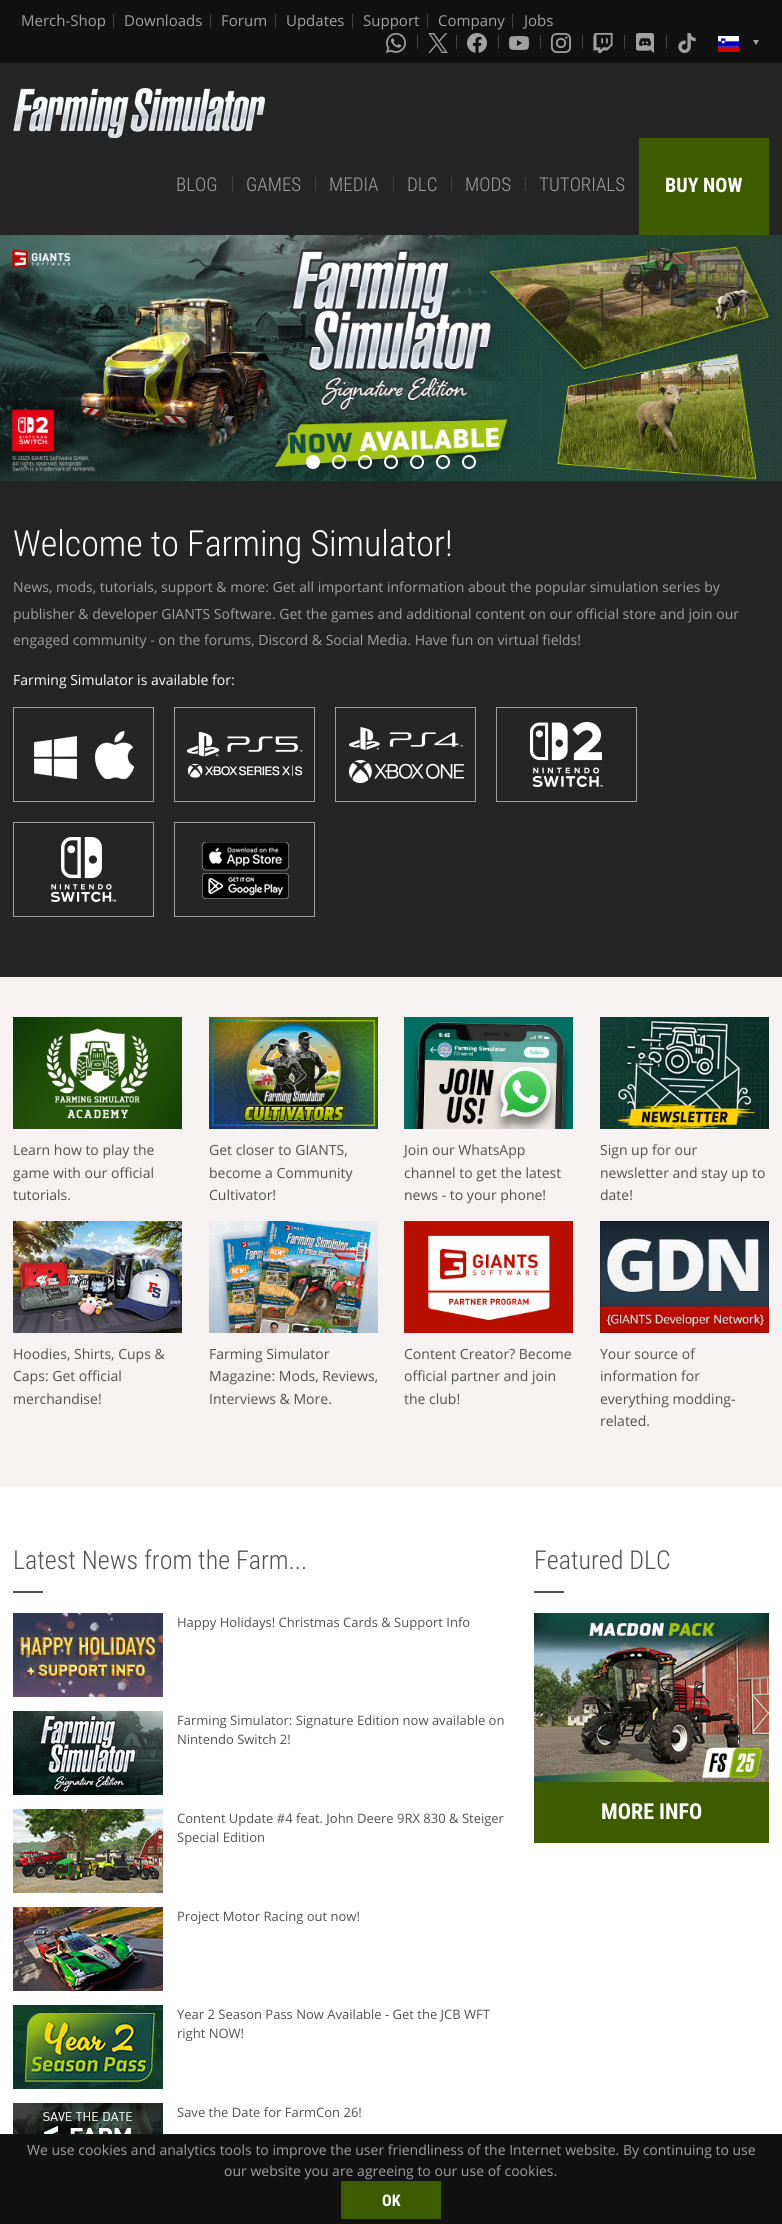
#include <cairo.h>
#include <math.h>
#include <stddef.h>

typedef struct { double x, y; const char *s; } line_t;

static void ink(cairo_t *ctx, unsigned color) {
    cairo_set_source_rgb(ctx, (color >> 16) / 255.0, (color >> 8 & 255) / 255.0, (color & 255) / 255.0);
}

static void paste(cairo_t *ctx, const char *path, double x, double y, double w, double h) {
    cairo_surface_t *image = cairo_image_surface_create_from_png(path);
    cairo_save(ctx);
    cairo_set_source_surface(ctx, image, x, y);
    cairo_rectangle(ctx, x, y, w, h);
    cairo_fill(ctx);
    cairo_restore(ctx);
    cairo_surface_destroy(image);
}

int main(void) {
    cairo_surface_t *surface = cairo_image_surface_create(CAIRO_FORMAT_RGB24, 782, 2224);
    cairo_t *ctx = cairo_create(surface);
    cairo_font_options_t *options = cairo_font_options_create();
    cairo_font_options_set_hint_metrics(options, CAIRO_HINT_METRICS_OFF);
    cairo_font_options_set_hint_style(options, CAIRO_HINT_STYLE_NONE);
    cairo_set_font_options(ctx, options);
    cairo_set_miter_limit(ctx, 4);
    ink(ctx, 0xFFFFFF);
    cairo_paint(ctx);
    ink(ctx, 0x111111);
    cairo_rectangle(ctx, 0, 0, 782, 63);
    cairo_fill(ctx);
    cairo_select_font_face(ctx, "Open Sans", CAIRO_FONT_SLANT_NORMAL, CAIRO_FONT_WEIGHT_NORMAL);
    cairo_set_font_size(ctx, 15);
    ink(ctx, 0xA1A1A1);
    cairo_move_to(ctx, 21, 26);
    cairo_show_text(ctx, "Merch-Shop");
    ink(ctx, 0x424242);
    cairo_rectangle(ctx, 113, 14, 1, 14);
    cairo_fill(ctx);
    ink(ctx, 0xA1A1A1);
    cairo_move_to(ctx, 124, 26);
    cairo_show_text(ctx, "Downloads");
    ink(ctx, 0x424242);
    cairo_rectangle(ctx, 210, 14, 1, 14);
    cairo_fill(ctx);
    ink(ctx, 0xA1A1A1);
    cairo_move_to(ctx, 221, 26);
    cairo_show_text(ctx, "Forum");
    ink(ctx, 0x424242);
    cairo_rectangle(ctx, 275, 14, 1, 14);
    cairo_fill(ctx);
    ink(ctx, 0xA1A1A1);
    cairo_move_to(ctx, 286, 26);
    cairo_show_text(ctx, "Updates");
    ink(ctx, 0x424242);
    cairo_rectangle(ctx, 352, 14, 1, 14);
    cairo_fill(ctx);
    ink(ctx, 0xA1A1A1);
    cairo_move_to(ctx, 363, 26);
    cairo_show_text(ctx, "Support");
    ink(ctx, 0x424242);
    cairo_rectangle(ctx, 427, 14, 1, 14);
    cairo_fill(ctx);
    ink(ctx, 0xA1A1A1);
    cairo_move_to(ctx, 438, 26);
    cairo_show_text(ctx, "Company");
    ink(ctx, 0x424242);
    cairo_rectangle(ctx, 512, 14, 1, 14);
    cairo_fill(ctx);
    ink(ctx, 0xA1A1A1);
    cairo_move_to(ctx, 524, 26);
    cairo_show_text(ctx, "Jobs");
    paste(ctx, "media/1.png", 386, 33, 20, 20);
    ink(ctx, 0x424242);
    cairo_rectangle(ctx, 417, 35, 1, 14);
    cairo_fill(ctx);
    paste(ctx, "media/2.png", 428, 33, 20, 20);
    cairo_rectangle(ctx, 456, 35, 1, 14);
    cairo_fill(ctx);
    paste(ctx, "media/3.png", 467, 33, 20, 20);
    cairo_rectangle(ctx, 498, 35, 1, 14);
    cairo_fill(ctx);
    paste(ctx, "media/4.png", 509, 36, 20, 14);
    cairo_rectangle(ctx, 540, 35, 1, 14);
    cairo_fill(ctx);
    paste(ctx, "media/5.png", 551, 33, 20, 20);
    cairo_rectangle(ctx, 582, 35, 1, 14);
    cairo_fill(ctx);
    paste(ctx, "media/6.png", 593, 33, 20, 20);
    cairo_rectangle(ctx, 624, 35, 1, 14);
    cairo_fill(ctx);
    paste(ctx, "media/7.png", 636, 33, 18, 20);
    cairo_rectangle(ctx, 666, 35, 1, 14);
    cairo_fill(ctx);
    paste(ctx, "media/8.png", 678, 33, 18, 20);
    paste(ctx, "media/9.png", 718, 36, 21, 16);
    ink(ctx, 0xA1A1A1);
    cairo_new_path(ctx);
    cairo_move_to(ctx, 753, 40);
    cairo_line_to(ctx, 759, 40);
    cairo_line_to(ctx, 756, 45);
    cairo_close_path(ctx);
    cairo_fill(ctx);
    ink(ctx, 0x252525);
    cairo_rectangle(ctx, 0, 63, 782, 172);
    cairo_fill(ctx);
    paste(ctx, "media/10.png", 13, 88, 252, 50);
    cairo_select_font_face(ctx, "Roboto Condensed Light", CAIRO_FONT_SLANT_NORMAL, CAIRO_FONT_WEIGHT_NORMAL);
    cairo_set_font_size(ctx, 19);
    ink(ctx, 0xA1A1A1);
    cairo_move_to(ctx, 176, 191);
    cairo_show_text(ctx, "BLOG");
    ink(ctx, 0x424242);
    cairo_rectangle(ctx, 232, 177, 1, 14);
    cairo_fill(ctx);
    ink(ctx, 0xA1A1A1);
    cairo_move_to(ctx, 246, 191);
    cairo_show_text(ctx, "GAMES");
    ink(ctx, 0x424242);
    cairo_rectangle(ctx, 315, 177, 1, 14);
    cairo_fill(ctx);
    ink(ctx, 0xA1A1A1);
    cairo_move_to(ctx, 329, 191);
    cairo_show_text(ctx, "MEDIA");
    ink(ctx, 0x424242);
    cairo_rectangle(ctx, 393, 177, 1, 14);
    cairo_fill(ctx);
    ink(ctx, 0xA1A1A1);
    cairo_move_to(ctx, 407, 191);
    cairo_show_text(ctx, "DLC");
    ink(ctx, 0x424242);
    cairo_rectangle(ctx, 451, 177, 1, 14);
    cairo_fill(ctx);
    ink(ctx, 0xA1A1A1);
    cairo_move_to(ctx, 465, 191);
    cairo_show_text(ctx, "MODS");
    ink(ctx, 0x424242);
    cairo_rectangle(ctx, 525, 177, 1, 14);
    cairo_fill(ctx);
    ink(ctx, 0xA1A1A1);
    cairo_move_to(ctx, 539, 191);
    cairo_show_text(ctx, "TUTORIALS");
    ink(ctx, 0x3D5C00);
    cairo_rectangle(ctx, 639, 138, 130, 97);
    cairo_fill(ctx);
    cairo_select_font_face(ctx, "Roboto Condensed", CAIRO_FONT_SLANT_NORMAL, CAIRO_FONT_WEIGHT_BOLD);
    cairo_set_font_size(ctx, 20);
    ink(ctx, 0xFFFFFF);
    cairo_move_to(ctx, 665, 192);
    cairo_show_text(ctx, "BUY NOW");
    paste(ctx, "media/11.png", 0, 235, 782, 246);
    cairo_arc(ctx, 313, 462, 6, 0, 2 * M_PI);
    cairo_fill_preserve(ctx);
    cairo_stroke(ctx);
    cairo_arc(ctx, 339, 462, 6, 0, 2 * M_PI);
    cairo_stroke(ctx);
    cairo_arc(ctx, 365, 462, 6, 0, 2 * M_PI);
    cairo_stroke(ctx);
    cairo_arc(ctx, 391, 462, 6, 0, 2 * M_PI);
    cairo_stroke(ctx);
    cairo_arc(ctx, 417, 462, 6, 0, 2 * M_PI);
    cairo_stroke(ctx);
    cairo_arc(ctx, 443, 462, 6, 0, 2 * M_PI);
    cairo_stroke(ctx);
    cairo_arc(ctx, 469, 462, 6, 0, 2 * M_PI);
    cairo_stroke(ctx);
    ink(ctx, 0x252525);
    cairo_rectangle(ctx, 0, 481, 782, 496);
    cairo_fill(ctx);
    cairo_select_font_face(ctx, "Roboto Condensed Light", CAIRO_FONT_SLANT_NORMAL, CAIRO_FONT_WEIGHT_NORMAL);
    cairo_set_font_size(ctx, 36);
    ink(ctx, 0xFFFFFF);
    cairo_move_to(ctx, 13, 556);
    cairo_show_text(ctx, "Welcome to Farming Simulator!");
    cairo_select_font_face(ctx, "Open Sans", CAIRO_FONT_SLANT_NORMAL, CAIRO_FONT_WEIGHT_NORMAL);
    cairo_set_font_size(ctx, 14);
    ink(ctx, 0xA1A1A1);
    {
        static const line_t items[] = {
            {13, 592, "News, mods, tutorials, support & more: Get all important information about the popular simulation series by"},
            {13, 619, "publisher & developer GIANTS Software. Get the games and additional content on our official store and join our"},
            {13, 645, "engaged community - on the forums, Discord & Social Media. Have fun on virtual fields!"},
        };
        for (size_t i = 0; i < sizeof items / sizeof *items; i++) {
            cairo_move_to(ctx, items[i].x, items[i].y);
            cairo_show_text(ctx, items[i].s);
        }
    }
    ink(ctx, 0xFFFFFF);
    cairo_move_to(ctx, 13, 685);
    cairo_show_text(ctx, "Farming Simulator is available for:");
    cairo_rectangle(ctx, 13.5, 707.5, 140, 94);
    ink(ctx, 0xA1A1A1);
    cairo_set_line_width(ctx, 1);
    cairo_stroke(ctx);
    paste(ctx, "media/12.png", 34, 731, 100, 48);
    cairo_rectangle(ctx, 174.5, 707.5, 140, 94);
    cairo_stroke(ctx);
    paste(ctx, "media/13.png", 187, 731, 116, 47);
    cairo_rectangle(ctx, 335.5, 707.5, 140, 94);
    cairo_stroke(ctx);
    paste(ctx, "media/14.png", 349, 727, 115, 56);
    cairo_rectangle(ctx, 496.5, 707.5, 140, 94);
    cairo_stroke(ctx);
    paste(ctx, "media/15.png", 530, 722, 73, 65);
    cairo_rectangle(ctx, 13.5, 822.5, 140, 94);
    cairo_stroke(ctx);
    paste(ctx, "media/16.png", 51, 837, 65, 65);
    cairo_rectangle(ctx, 174.5, 822.5, 140, 94);
    cairo_stroke(ctx);
    paste(ctx, "media/17.png", 201, 842, 89, 57);
    ink(ctx, 0xF6F2F1);
    cairo_rectangle(ctx, 0, 977, 782, 510);
    cairo_fill(ctx);
    paste(ctx, "media/18.png", 13, 1017, 169, 112);
    ink(ctx, 0x505050);
    {
        static const line_t items[] = {
            {13, 1155, "Learn how to play the"},
            {13, 1178, "game with our official"},
            {13, 1200, "tutorials."},
        };
        for (size_t i = 0; i < sizeof items / sizeof *items; i++) {
            cairo_move_to(ctx, items[i].x, items[i].y);
            cairo_show_text(ctx, items[i].s);
        }
    }
    paste(ctx, "media/19.png", 209, 1017, 169, 112);
    {
        static const line_t items[] = {
            {209, 1155, "Get closer to GIANTS,"},
            {209, 1178, "become a Community"},
            {209, 1200, "Cultivator!"},
        };
        for (size_t i = 0; i < sizeof items / sizeof *items; i++) {
            cairo_move_to(ctx, items[i].x, items[i].y);
            cairo_show_text(ctx, items[i].s);
        }
    }
    paste(ctx, "media/20.png", 404, 1017, 169, 112);
    {
        static const line_t items[] = {
            {404, 1155, "Join our WhatsApp"},
            {404, 1178, "channel to get the latest"},
            {404, 1200, "news - to your phone!"},
        };
        for (size_t i = 0; i < sizeof items / sizeof *items; i++) {
            cairo_move_to(ctx, items[i].x, items[i].y);
            cairo_show_text(ctx, items[i].s);
        }
    }
    paste(ctx, "media/21.png", 600, 1017, 169, 112);
    {
        static const line_t items[] = {
            {600, 1155, "Sign up for our"},
            {600, 1178, "newsletter and stay up to"},
            {600, 1200, "date!"},
        };
        for (size_t i = 0; i < sizeof items / sizeof *items; i++) {
            cairo_move_to(ctx, items[i].x, items[i].y);
            cairo_show_text(ctx, items[i].s);
        }
    }
    paste(ctx, "media/22.png", 13, 1221, 169, 112);
    {
        static const line_t items[] = {
            {13, 1359, "Hoodies, Shirts, Cups &"},
            {13, 1381, "Caps: Get official"},
            {13, 1404, "merchandise!"},
        };
        for (size_t i = 0; i < sizeof items / sizeof *items; i++) {
            cairo_move_to(ctx, items[i].x, items[i].y);
            cairo_show_text(ctx, items[i].s);
        }
    }
    paste(ctx, "media/23.png", 209, 1221, 169, 112);
    {
        static const line_t items[] = {
            {209, 1359, "Farming Simulator"},
            {209, 1381, "Magazine: Mods, Reviews,"},
            {209, 1404, "Interviews & More."},
        };
        for (size_t i = 0; i < sizeof items / sizeof *items; i++) {
            cairo_move_to(ctx, items[i].x, items[i].y);
            cairo_show_text(ctx, items[i].s);
        }
    }
    paste(ctx, "media/24.png", 404, 1221, 169, 112);
    {
        static const line_t items[] = {
            {404, 1359, "Content Creator? Become"},
            {404, 1381, "official partner and join"},
            {404, 1404, "the club!"},
        };
        for (size_t i = 0; i < sizeof items / sizeof *items; i++) {
            cairo_move_to(ctx, items[i].x, items[i].y);
            cairo_show_text(ctx, items[i].s);
        }
    }
    paste(ctx, "media/25.png", 600, 1221, 169, 112);
    {
        static const line_t items[] = {
            {600, 1359, "Your source of"},
            {600, 1381, "information for"},
            {600, 1404, "everything modding-"},
            {600, 1426, "related."},
        };
        for (size_t i = 0; i < sizeof items / sizeof *items; i++) {
            cairo_move_to(ctx, items[i].x, items[i].y);
            cairo_show_text(ctx, items[i].s);
        }
    }
    cairo_select_font_face(ctx, "Roboto Condensed Light", CAIRO_FONT_SLANT_NORMAL, CAIRO_FONT_WEIGHT_NORMAL);
    cairo_set_font_size(ctx, 26);
    cairo_move_to(ctx, 13, 1569);
    cairo_show_text(ctx, "Latest News from the Farm...");
    cairo_rectangle(ctx, 13, 1591, 30, 2);
    cairo_fill(ctx);
    paste(ctx, "media/26.png", 13, 1613, 150, 84);
    cairo_select_font_face(ctx, "Open Sans", CAIRO_FONT_SLANT_NORMAL, CAIRO_FONT_WEIGHT_NORMAL);
    cairo_set_font_size(ctx, 13);
    cairo_move_to(ctx, 177, 1627);
    cairo_show_text(ctx, "Happy Holidays! Christmas Cards & Support Info");
    paste(ctx, "media/27.png", 13, 1711, 150, 84);
    cairo_move_to(ctx, 177, 1725);
    cairo_show_text(ctx, "Farming Simulator: Signature Edition now available on");
    cairo_move_to(ctx, 177, 1744);
    cairo_show_text(ctx, "Nintendo Switch 2!");
    paste(ctx, "media/28.png", 13, 1809, 150, 84);
    cairo_move_to(ctx, 177, 1823);
    cairo_show_text(ctx, "Content Update #4 feat. John Deere 9RX 830 & Steiger");
    cairo_move_to(ctx, 177, 1842);
    cairo_show_text(ctx, "Special Edition");
    paste(ctx, "media/29.png", 13, 1907, 150, 84);
    cairo_move_to(ctx, 177, 1921);
    cairo_show_text(ctx, "Project Motor Racing out now!");
    paste(ctx, "media/30.png", 13, 2005, 150, 84);
    cairo_move_to(ctx, 177, 2019);
    cairo_show_text(ctx, "Year 2 Season Pass Now Available - Get the JCB WFT");
    cairo_move_to(ctx, 177, 2038);
    cairo_show_text(ctx, "right NOW!");
    paste(ctx, "media/31.png", 13, 2103, 150, 31);
    cairo_move_to(ctx, 177, 2117);
    cairo_show_text(ctx, "Save the Date for FarmCon 26!");
    cairo_select_font_face(ctx, "Roboto Condensed Light", CAIRO_FONT_SLANT_NORMAL, CAIRO_FONT_WEIGHT_NORMAL);
    cairo_set_font_size(ctx, 26);
    cairo_move_to(ctx, 534, 1569);
    cairo_show_text(ctx, "Featured DLC");
    cairo_rectangle(ctx, 534, 1591, 30, 2);
    cairo_fill(ctx);
    paste(ctx, "media/32.png", 534, 1613, 235, 169);
    ink(ctx, 0x3D5C00);
    cairo_rectangle(ctx, 534, 1782, 235, 61);
    cairo_fill(ctx);
    cairo_select_font_face(ctx, "Roboto Condensed", CAIRO_FONT_SLANT_NORMAL, CAIRO_FONT_WEIGHT_BOLD);
    cairo_set_font_size(ctx, 22);
    ink(ctx, 0xFFFFFF);
    cairo_move_to(ctx, 601, 1819);
    cairo_show_text(ctx, "MORE INFO");
    ink(ctx, 0x111111);
    cairo_rectangle(ctx, 0, 2134, 782, 90);
    cairo_fill(ctx);
    cairo_select_font_face(ctx, "Open Sans", CAIRO_FONT_SLANT_NORMAL, CAIRO_FONT_WEIGHT_NORMAL);
    cairo_set_font_size(ctx, 14);
    ink(ctx, 0xA1A1A1);
    cairo_move_to(ctx, 27, 2155);
    cairo_show_text(ctx, "We use cookies and analytics tools to improve the user friendliness of the Internet website. By continuing to use");
    cairo_move_to(ctx, 224, 2176);
    cairo_show_text(ctx, "our website you are agreeing to our use of cookies.");
    ink(ctx, 0x3D5C00);
    cairo_rectangle(ctx, 341, 2181, 100, 38);
    cairo_fill(ctx);
    cairo_select_font_face(ctx, "Roboto Condensed", CAIRO_FONT_SLANT_NORMAL, CAIRO_FONT_WEIGHT_BOLD);
    cairo_set_font_size(ctx, 16);
    ink(ctx, 0xFFFFFF);
    cairo_move_to(ctx, 382, 2206);
    cairo_show_text(ctx, "OK");
    cairo_surface_write_to_png(surface, "image.png");
    cairo_font_options_destroy(options);
    cairo_destroy(ctx);
    cairo_surface_destroy(surface);
    return 0;
}
